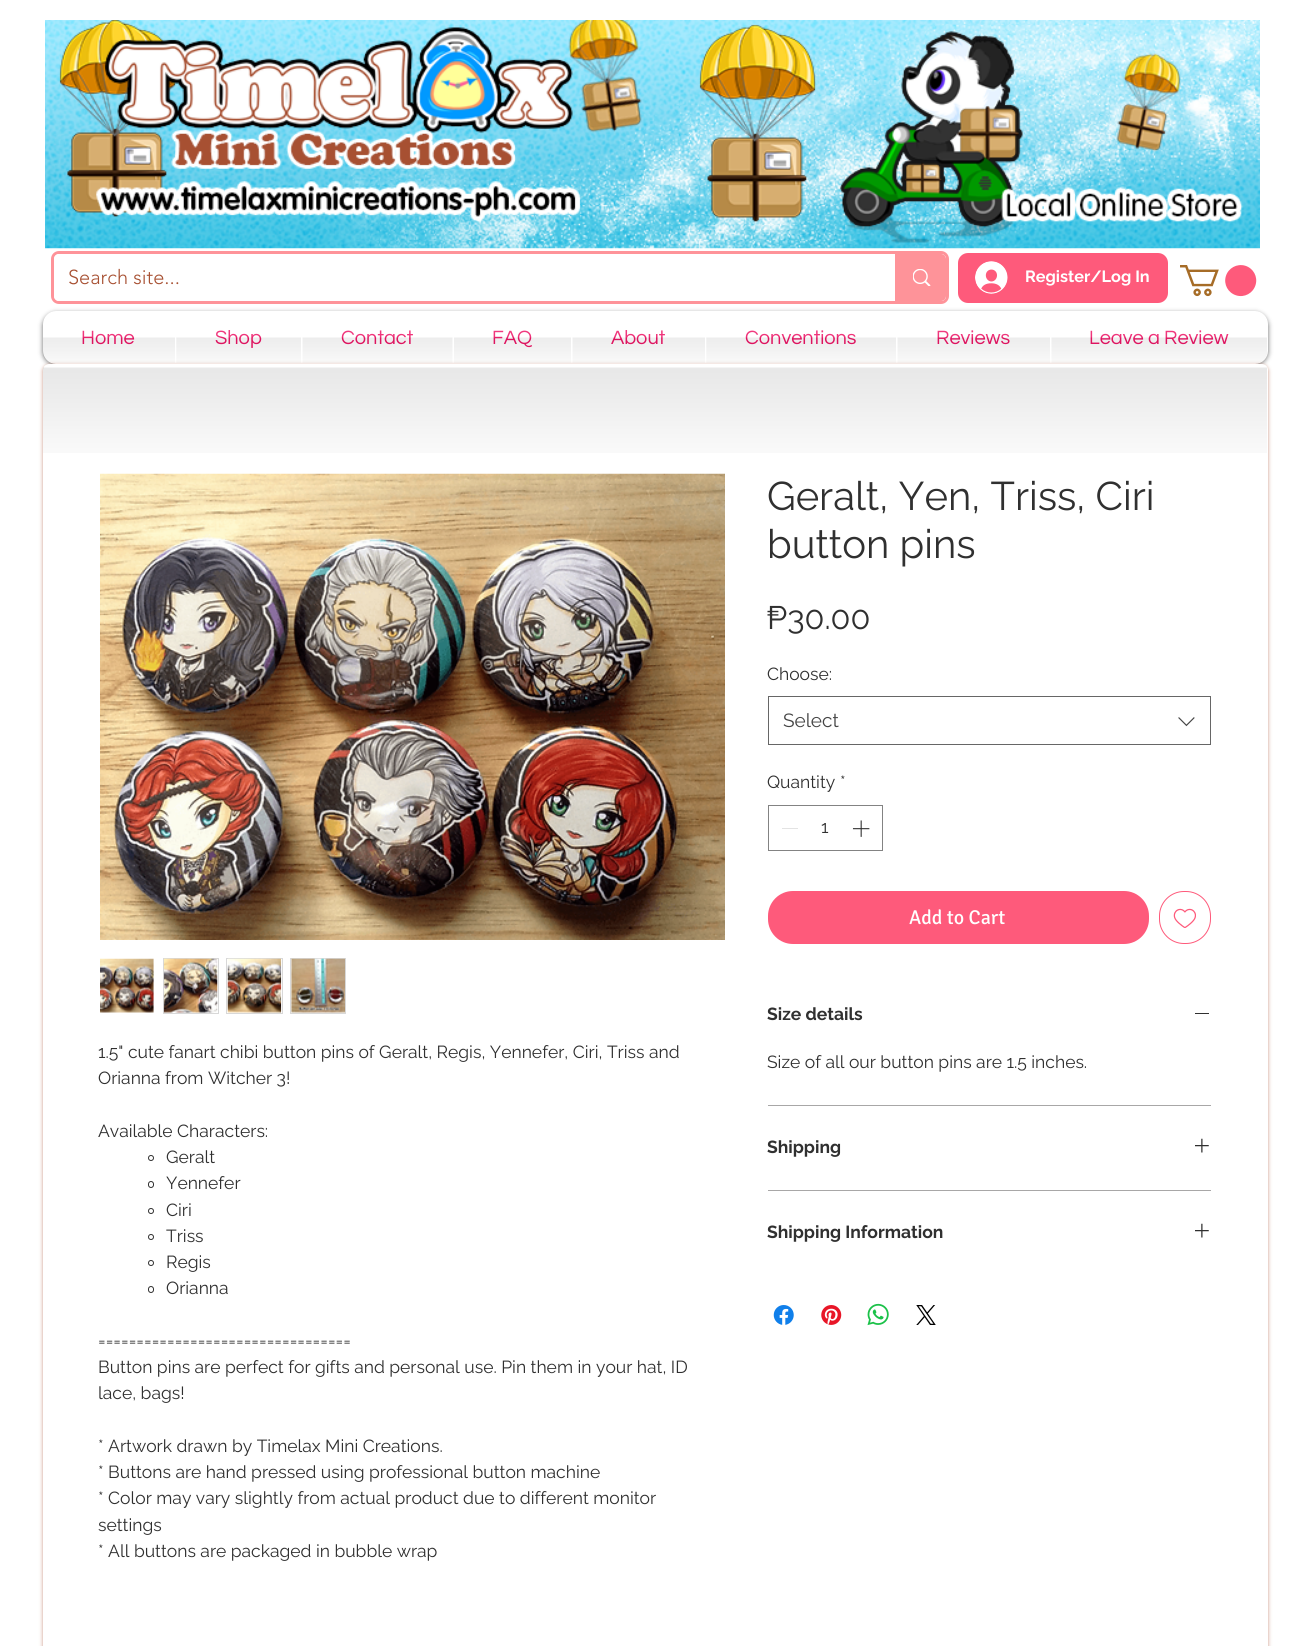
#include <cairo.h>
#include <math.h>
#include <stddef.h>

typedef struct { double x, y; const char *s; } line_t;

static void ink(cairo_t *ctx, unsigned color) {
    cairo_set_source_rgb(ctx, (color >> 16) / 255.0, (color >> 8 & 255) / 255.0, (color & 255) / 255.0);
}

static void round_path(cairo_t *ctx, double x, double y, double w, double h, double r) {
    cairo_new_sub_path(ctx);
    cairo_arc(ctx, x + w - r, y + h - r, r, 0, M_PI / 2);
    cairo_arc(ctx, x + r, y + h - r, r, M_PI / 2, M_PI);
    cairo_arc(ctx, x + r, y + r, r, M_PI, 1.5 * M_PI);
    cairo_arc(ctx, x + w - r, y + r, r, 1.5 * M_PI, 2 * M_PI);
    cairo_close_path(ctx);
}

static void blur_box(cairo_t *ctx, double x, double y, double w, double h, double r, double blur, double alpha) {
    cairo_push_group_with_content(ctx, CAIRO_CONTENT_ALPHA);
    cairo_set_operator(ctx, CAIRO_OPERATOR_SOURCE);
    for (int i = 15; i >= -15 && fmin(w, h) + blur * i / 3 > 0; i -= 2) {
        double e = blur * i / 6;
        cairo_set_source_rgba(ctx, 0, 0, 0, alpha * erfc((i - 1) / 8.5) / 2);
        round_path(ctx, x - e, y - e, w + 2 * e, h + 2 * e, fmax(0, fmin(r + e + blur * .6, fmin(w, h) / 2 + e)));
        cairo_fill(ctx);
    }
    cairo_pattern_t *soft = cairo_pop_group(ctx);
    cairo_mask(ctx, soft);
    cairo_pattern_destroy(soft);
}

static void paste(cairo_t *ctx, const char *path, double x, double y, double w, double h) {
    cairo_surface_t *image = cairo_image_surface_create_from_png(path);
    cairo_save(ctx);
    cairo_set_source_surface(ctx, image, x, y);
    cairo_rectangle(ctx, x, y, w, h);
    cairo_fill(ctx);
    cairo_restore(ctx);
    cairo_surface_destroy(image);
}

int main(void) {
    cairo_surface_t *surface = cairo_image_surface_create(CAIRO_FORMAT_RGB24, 1308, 1646);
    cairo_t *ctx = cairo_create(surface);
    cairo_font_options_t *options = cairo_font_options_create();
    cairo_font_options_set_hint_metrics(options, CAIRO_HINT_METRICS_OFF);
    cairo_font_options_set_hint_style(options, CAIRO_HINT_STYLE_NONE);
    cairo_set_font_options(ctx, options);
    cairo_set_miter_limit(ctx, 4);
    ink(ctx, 0xFFFFFF);
    cairo_paint(ctx);
    paste(ctx, "media/1.png", 45, 20, 1215, 229);
    round_path(ctx, 52.5, 252.5, 895, 50, 6.5);
    ink(ctx, 0xFE9399);
    cairo_set_line_width(ctx, 3);
    cairo_stroke(ctx);
    ink(ctx, 0xFFFFFF);
    round_path(ctx, 54, 254, 892, 47, 5);
    cairo_fill(ctx);
    cairo_select_font_face(ctx, "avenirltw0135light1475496 Light", CAIRO_FONT_SLANT_NORMAL, CAIRO_FONT_WEIGHT_NORMAL);
    cairo_set_font_size(ctx, 20);
    ink(ctx, 0xA75032);
    cairo_move_to(ctx, 68, 284);
    cairo_show_text(ctx, "Search site...");
    ink(ctx, 0xFE9399);
    cairo_new_path(ctx);
    cairo_move_to(ctx, 895, 254);
    cairo_line_to(ctx, 941, 254);
    cairo_curve_to(ctx, 944, 254, 946, 256, 946, 259);
    cairo_line_to(ctx, 946, 296);
    cairo_curve_to(ctx, 946, 299, 944, 301, 941, 301);
    cairo_line_to(ctx, 895, 301);
    cairo_close_path(ctx);
    cairo_fill(ctx);
    paste(ctx, "media/2.png", 913, 269, 18, 17);
    ink(ctx, 0xFE5A7B);
    round_path(ctx, 958, 253, 210, 50, 10);
    cairo_fill(ctx);
    paste(ctx, "media/3.png", 975, 261, 33, 33);
    cairo_select_font_face(ctx, "Raleway", CAIRO_FONT_SLANT_NORMAL, CAIRO_FONT_WEIGHT_BOLD);
    cairo_set_font_size(ctx, 16.25);
    ink(ctx, 0xFFFFFF);
    cairo_move_to(ctx, 1025, 282);
    cairo_show_text(ctx, "Register/Log In");
    paste(ctx, "media/4.png", 1180, 265, 77, 32);
    ink(ctx, 0x000000);
    blur_box(ctx, 43, 313, 1225, 52, 13, 2.5, 0.6);
    paste(ctx, "media/5.png", 43, 351, 5, 10);
    ink(ctx, 0xFFFFFF);
    cairo_new_path(ctx);
    cairo_move_to(ctx, 56, 311);
    cairo_line_to(ctx, 175, 311);
    cairo_line_to(ctx, 175, 364);
    cairo_line_to(ctx, 56, 364);
    cairo_curve_to(ctx, 49, 364, 43, 358, 43, 351);
    cairo_line_to(ctx, 43, 324);
    cairo_curve_to(ctx, 43, 317, 49, 311, 56, 311);
    cairo_close_path(ctx);
    cairo_fill(ctx);
    cairo_select_font_face(ctx, "Questrial", CAIRO_FONT_SLANT_NORMAL, CAIRO_FONT_WEIGHT_NORMAL);
    cairo_set_font_size(ctx, 20);
    ink(ctx, 0xED1566);
    cairo_move_to(ctx, 81, 344);
    cairo_show_text(ctx, "Home");
    paste(ctx, "media/6.png", 43, 330, 132, 33);
    ink(ctx, 0xFFFFFF);
    cairo_rectangle(ctx, 175, 311, 875, 53);
    cairo_fill(ctx);
    ink(ctx, 0xED1566);
    cairo_move_to(ctx, 215, 344);
    cairo_show_text(ctx, "Shop");
    paste(ctx, "media/7.png", 176, 330, 125, 33);
    cairo_move_to(ctx, 341, 344);
    cairo_show_text(ctx, "Contact");
    paste(ctx, "media/8.png", 302, 330, 151, 33);
    cairo_move_to(ctx, 492, 344);
    cairo_show_text(ctx, "FAQ");
    paste(ctx, "media/9.png", 454, 330, 117, 33);
    cairo_move_to(ctx, 611, 344);
    cairo_show_text(ctx, "About");
    paste(ctx, "media/10.png", 572, 330, 133, 33);
    cairo_move_to(ctx, 745, 344);
    cairo_show_text(ctx, "Conventions");
    paste(ctx, "media/11.png", 706, 330, 190, 33);
    cairo_move_to(ctx, 936, 344);
    cairo_show_text(ctx, "Reviews");
    paste(ctx, "media/12.png", 897, 330, 153, 33);
    ink(ctx, 0xFFFFFF);
    cairo_new_path(ctx);
    cairo_move_to(ctx, 1050, 311);
    cairo_line_to(ctx, 1255, 311);
    cairo_curve_to(ctx, 1262, 311, 1268, 317, 1268, 324);
    cairo_line_to(ctx, 1268, 351);
    cairo_curve_to(ctx, 1268, 358, 1262, 364, 1255, 364);
    cairo_line_to(ctx, 1050, 364);
    cairo_close_path(ctx);
    cairo_fill(ctx);
    ink(ctx, 0xED1566);
    cairo_move_to(ctx, 1089, 344);
    cairo_show_text(ctx, "Leave a Review");
    paste(ctx, "media/13.png", 1051, 330, 216, 33);
    ink(ctx, 0xA75032);
    blur_box(ctx, 43, 365, 1225, 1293, 6, 2, 0.6);
    ink(ctx, 0xFFFFFF);
    round_path(ctx, 43, 364, 1225, 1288, 6);
    cairo_fill(ctx);
    paste(ctx, "media/14.png", 43, 367, 1224, 86);
    cairo_select_font_face(ctx, "Raleway", CAIRO_FONT_SLANT_NORMAL, CAIRO_FONT_WEIGHT_NORMAL);
    cairo_set_font_size(ctx, 40);
    ink(ctx, 0x303030);
    cairo_move_to(ctx, 767, 510);
    cairo_show_text(ctx, "Geralt, Yen, Triss, Ciri");
    cairo_move_to(ctx, 767, 558);
    cairo_show_text(ctx, "button pins");
    cairo_set_font_size(ctx, 32.5);
    cairo_move_to(ctx, 767, 629);
    cairo_show_text(ctx, "₱30.00");
    cairo_set_font_size(ctx, 17.5);
    cairo_move_to(ctx, 767, 680);
    cairo_show_text(ctx, "Choose:");
    cairo_rectangle(ctx, 768.5, 696.5, 442, 48);
    ink(ctx, 0x666666);
    cairo_set_line_width(ctx, 1);
    cairo_stroke(ctx);
    cairo_set_font_size(ctx, 19);
    ink(ctx, 0x444444);
    cairo_move_to(ctx, 783, 727);
    cairo_show_text(ctx, "Select");
    paste(ctx, "media/15.png", 1178, 717, 17, 10);
    cairo_set_font_size(ctx, 17.5);
    ink(ctx, 0x303030);
    cairo_move_to(ctx, 767, 788);
    cairo_show_text(ctx, "Quantity");
    cairo_move_to(ctx, 840, 788);
    cairo_show_text(ctx, "*");
    cairo_rectangle(ctx, 768.5, 805.5, 114, 45);
    ink(ctx, 0x838383);
    cairo_stroke(ctx);
    ink(ctx, 0xE3E3E3);
    cairo_rectangle(ctx, 782, 828, 16, 1);
    cairo_fill(ctx);
    ink(ctx, 0x303030);
    cairo_move_to(ctx, 821, 833);
    cairo_show_text(ctx, "1");
    paste(ctx, "media/16.png", 852, 820, 18, 17);
    ink(ctx, 0xFE5A7B);
    round_path(ctx, 768, 891, 381, 53, 25);
    cairo_fill(ctx);
    cairo_select_font_face(ctx, "Signika", CAIRO_FONT_SLANT_NORMAL, CAIRO_FONT_WEIGHT_NORMAL);
    cairo_set_font_size(ctx, 20);
    ink(ctx, 0xFFFFFF);
    cairo_move_to(ctx, 909, 924);
    cairo_show_text(ctx, "Add to Cart");
    round_path(ctx, 1159.5, 891.5, 51, 52, 24.5);
    ink(ctx, 0xFE5A7B);
    cairo_stroke(ctx);
    paste(ctx, "media/17.png", 1173, 908, 23, 20);
    ink(ctx, 0xA8A7A7);
    cairo_rectangle(ctx, 768, 1105, 443, 1);
    cairo_fill(ctx);
    cairo_select_font_face(ctx, "Raleway", CAIRO_FONT_SLANT_NORMAL, CAIRO_FONT_WEIGHT_BOLD);
    cairo_set_font_size(ctx, 17.5);
    ink(ctx, 0x303030);
    cairo_move_to(ctx, 767, 1020);
    cairo_show_text(ctx, "Size details");
    cairo_rectangle(ctx, 1195, 1013, 14, 1);
    cairo_fill(ctx);
    cairo_select_font_face(ctx, "Raleway", CAIRO_FONT_SLANT_NORMAL, CAIRO_FONT_WEIGHT_NORMAL);
    cairo_move_to(ctx, 767, 1068);
    cairo_show_text(ctx, "Size of all our button pins are 1.5 inches.");
    ink(ctx, 0xA8A7A7);
    cairo_rectangle(ctx, 768, 1190, 443, 1);
    cairo_fill(ctx);
    cairo_select_font_face(ctx, "Raleway", CAIRO_FONT_SLANT_NORMAL, CAIRO_FONT_WEIGHT_BOLD);
    ink(ctx, 0x303030);
    cairo_move_to(ctx, 767, 1153);
    cairo_show_text(ctx, "Shipping");
    paste(ctx, "media/18.png", 1195, 1138, 14, 15);
    cairo_move_to(ctx, 767, 1238);
    cairo_show_text(ctx, "Shipping Information");
    paste(ctx, "media/18.png", 1195, 1223, 14, 15);
    paste(ctx, "media/19.png", 773, 1305, 21, 20);
    paste(ctx, "media/20.png", 821, 1305, 21, 20);
    paste(ctx, "media/21.png", 867, 1303, 22, 23);
    paste(ctx, "media/22.png", 916, 1305, 20, 20);
    paste(ctx, "media/23.png", 100, 473, 625, 467);
    paste(ctx, "media/24.png", 100, 958, 54, 55);
    cairo_rectangle(ctx, 163.5, 958.5, 55, 55);
    ink(ctx, 0xD8D8D8);
    cairo_stroke(ctx);
    paste(ctx, "media/25.png", 163, 958, 55, 55);
    cairo_rectangle(ctx, 226.5, 958.5, 56, 55);
    cairo_stroke(ctx);
    paste(ctx, "media/26.png", 227, 958, 55, 55);
    cairo_rectangle(ctx, 290.5, 958.5, 55, 55);
    cairo_stroke(ctx);
    paste(ctx, "media/27.png", 291, 958, 54, 55);
    cairo_select_font_face(ctx, "Raleway", CAIRO_FONT_SLANT_NORMAL, CAIRO_FONT_WEIGHT_NORMAL);
    ink(ctx, 0x303030);
    {
        static const line_t items[] = {
            {98, 1058, "1.5\" cute fanart chibi button pins of Geralt, Regis, Yennefer, Ciri, Triss and"},
            {98, 1084, "Orianna from Witcher 3!"},
            {98, 1137, "Available Characters:"},
        };
        for (size_t i = 0; i < sizeof items / sizeof *items; i++) {
            cairo_move_to(ctx, items[i].x, items[i].y);
            cairo_show_text(ctx, items[i].s);
        }
    }
    cairo_new_path(ctx);
    cairo_arc(ctx, 151, 1158, 2.5, 0, 2 * M_PI);
    cairo_stroke(ctx);
    cairo_move_to(ctx, 166, 1163);
    cairo_show_text(ctx, "Geralt");
    round_path(ctx, 148.5, 1181.5, 5, 6, 2.5);
    cairo_stroke(ctx);
    cairo_move_to(ctx, 166, 1189);
    cairo_show_text(ctx, "Yennefer");
    cairo_new_path(ctx);
    cairo_arc(ctx, 151, 1211, 2.5, 0, 2 * M_PI);
    cairo_stroke(ctx);
    cairo_move_to(ctx, 166, 1216);
    cairo_show_text(ctx, "Ciri");
    cairo_new_path(ctx);
    cairo_arc(ctx, 151, 1237, 2.5, 0, 2 * M_PI);
    cairo_stroke(ctx);
    cairo_move_to(ctx, 166, 1242);
    cairo_show_text(ctx, "Triss");
    cairo_new_path(ctx);
    cairo_arc(ctx, 151, 1263, 2.5, 0, 2 * M_PI);
    cairo_stroke(ctx);
    cairo_move_to(ctx, 166, 1268);
    cairo_show_text(ctx, "Regis");
    round_path(ctx, 148.5, 1286.5, 5, 6, 2.5);
    cairo_stroke(ctx);
    {
        static const line_t items[] = {
            {166, 1294, "Orianna"},
            {98, 1347, "================================="},
            {98, 1373, "Button pins are perfect for gifts and personal use. Pin them in your hat, ID"},
            {98, 1399, "lace, bags!"},
            {98, 1452, "* Artwork drawn by Timelax Mini Creations."},
            {98, 1478, "* Buttons are hand pressed using professional button machine"},
            {98, 1504, "* Color may vary slightly from actual product due to different monitor"},
            {98, 1531, "settings"},
            {98, 1557, "* All buttons are packaged in bubble wrap"},
        };
        for (size_t i = 0; i < sizeof items / sizeof *items; i++) {
            cairo_move_to(ctx, items[i].x, items[i].y);
            cairo_show_text(ctx, items[i].s);
        }
    }
    cairo_surface_write_to_png(surface, "image.png");
    cairo_font_options_destroy(options);
    cairo_destroy(ctx);
    cairo_surface_destroy(surface);
    return 0;
}
